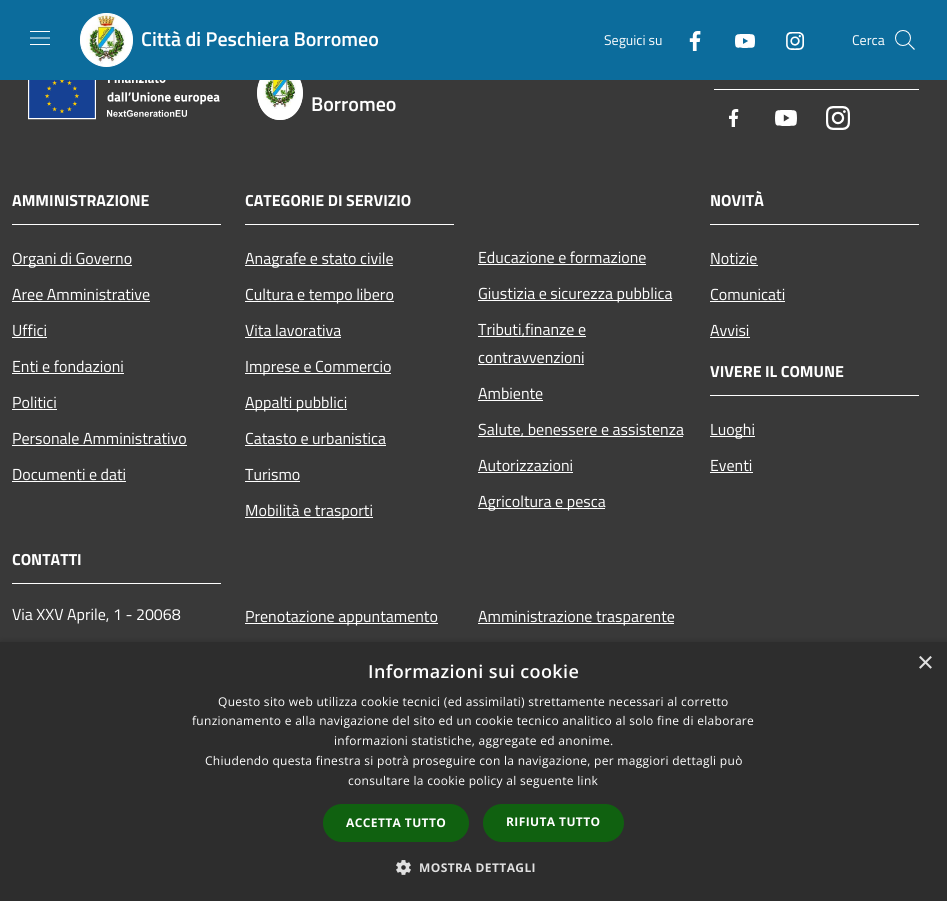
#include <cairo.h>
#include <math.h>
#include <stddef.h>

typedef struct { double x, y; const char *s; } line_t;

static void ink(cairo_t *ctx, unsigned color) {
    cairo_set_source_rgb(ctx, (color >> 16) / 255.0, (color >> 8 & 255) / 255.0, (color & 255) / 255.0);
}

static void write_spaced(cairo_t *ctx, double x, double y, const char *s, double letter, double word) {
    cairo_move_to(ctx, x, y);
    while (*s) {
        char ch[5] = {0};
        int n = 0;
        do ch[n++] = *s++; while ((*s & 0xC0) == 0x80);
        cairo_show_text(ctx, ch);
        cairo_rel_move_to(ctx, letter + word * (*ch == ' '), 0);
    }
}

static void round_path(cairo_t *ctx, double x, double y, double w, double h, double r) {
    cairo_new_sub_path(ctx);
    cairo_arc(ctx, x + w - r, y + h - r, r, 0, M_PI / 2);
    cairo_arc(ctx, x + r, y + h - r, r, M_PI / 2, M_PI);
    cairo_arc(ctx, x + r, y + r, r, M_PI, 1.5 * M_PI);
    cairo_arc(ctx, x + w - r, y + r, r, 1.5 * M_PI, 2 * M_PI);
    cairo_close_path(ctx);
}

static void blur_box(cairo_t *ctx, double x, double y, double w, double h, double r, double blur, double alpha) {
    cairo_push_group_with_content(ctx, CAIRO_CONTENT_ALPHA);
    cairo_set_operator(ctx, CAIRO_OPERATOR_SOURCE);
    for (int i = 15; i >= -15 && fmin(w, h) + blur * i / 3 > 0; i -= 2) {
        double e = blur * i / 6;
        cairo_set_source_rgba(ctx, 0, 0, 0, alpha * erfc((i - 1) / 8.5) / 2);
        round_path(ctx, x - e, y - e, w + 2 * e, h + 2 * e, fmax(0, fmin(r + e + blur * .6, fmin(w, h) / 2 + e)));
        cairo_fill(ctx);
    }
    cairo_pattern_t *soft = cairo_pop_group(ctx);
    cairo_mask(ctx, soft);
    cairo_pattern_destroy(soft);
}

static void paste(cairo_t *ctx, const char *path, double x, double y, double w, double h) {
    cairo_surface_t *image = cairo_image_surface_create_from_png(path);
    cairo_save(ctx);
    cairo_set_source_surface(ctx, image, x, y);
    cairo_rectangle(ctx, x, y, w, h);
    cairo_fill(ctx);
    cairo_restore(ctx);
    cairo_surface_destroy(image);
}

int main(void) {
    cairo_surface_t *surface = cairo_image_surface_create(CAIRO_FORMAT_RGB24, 947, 901);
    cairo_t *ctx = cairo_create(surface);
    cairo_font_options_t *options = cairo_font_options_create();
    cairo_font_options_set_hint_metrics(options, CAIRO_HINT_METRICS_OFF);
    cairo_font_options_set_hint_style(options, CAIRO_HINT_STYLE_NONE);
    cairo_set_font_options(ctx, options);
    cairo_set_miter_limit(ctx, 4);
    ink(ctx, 0x393939);
    cairo_paint(ctx);
    ink(ctx, 0xFFFFFF);
    cairo_new_path(ctx);
    cairo_move_to(ctx, 280, 66);
    cairo_curve_to(ctx, 292.5, 66, 303, 78, 303, 93);
    cairo_curve_to(ctx, 303, 108, 292.5, 120, 280, 120);
    cairo_curve_to(ctx, 267.5, 120, 257, 108, 257, 93);
    cairo_curve_to(ctx, 257, 78, 267.5, 66, 280, 66);
    cairo_close_path(ctx);
    cairo_fill(ctx);
    cairo_new_path(ctx);
    cairo_move_to(ctx, 280, 66.5);
    cairo_curve_to(ctx, 309.5, 66.5, 309.5, 119.5, 280, 119.5);
    cairo_curve_to(ctx, 250.5, 119.5, 250.5, 66.5, 280, 66.5);
    cairo_close_path(ctx);
    cairo_set_line_width(ctx, 1);
    cairo_stroke(ctx);
    ink(ctx, 0x0C6C9C);
    cairo_rectangle(ctx, 0, 0, 947, 80);
    cairo_fill(ctx);
    paste(ctx, "media/1.png", 30, 31, 20, 14);
    ink(ctx, 0xFFFFFF);
    round_path(ctx, 80.5, 13.5, 52, 53, 26);
    cairo_fill_preserve(ctx);
    cairo_stroke(ctx);
    paste(ctx, "media/2.png", 86, 14, 39, 50);
    cairo_select_font_face(ctx, "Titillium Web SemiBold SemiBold", CAIRO_FONT_SLANT_NORMAL, CAIRO_FONT_WEIGHT_NORMAL);
    cairo_set_font_size(ctx, 20);
    cairo_move_to(ctx, 141, 46);
    cairo_show_text(ctx, "Città di Peschiera Borromeo");
    cairo_select_font_face(ctx, "Titillium Web", CAIRO_FONT_SLANT_NORMAL, CAIRO_FONT_WEIGHT_NORMAL);
    cairo_set_font_size(ctx, 14);
    cairo_move_to(ctx, 604, 45);
    cairo_show_text(ctx, "Seguici su");
    paste(ctx, "media/3.png", 689, 31, 12, 20);
    paste(ctx, "media/4.png", 735, 34, 20, 14);
    paste(ctx, "media/5.png", 786, 32, 18, 18);
    cairo_move_to(ctx, 852, 45);
    cairo_show_text(ctx, "Cerca");
    paste(ctx, "media/6.png", 895, 30, 20, 20);
    paste(ctx, "media/7.png", 28, 80, 192, 40);
    paste(ctx, "media/8.png", 263, 80, 33, 29);
    cairo_select_font_face(ctx, "Titillium Web SemiBold SemiBold", CAIRO_FONT_SLANT_NORMAL, CAIRO_FONT_WEIGHT_NORMAL);
    cairo_set_font_size(ctx, 20);
    cairo_move_to(ctx, 311, 111);
    cairo_show_text(ctx, "Borromeo");
    cairo_rectangle(ctx, 714, 89, 205, 1);
    cairo_fill(ctx);
    paste(ctx, "media/9.png", 729, 109, 10, 18);
    paste(ctx, "media/10.png", 775, 110, 22, 16);
    paste(ctx, "media/11.png", 826, 106, 24, 24);
    cairo_rectangle(ctx, 12, 224, 209, 1);
    cairo_fill(ctx);
    cairo_select_font_face(ctx, "Titillium Web", CAIRO_FONT_SLANT_NORMAL, CAIRO_FONT_WEIGHT_BOLD);
    cairo_set_font_size(ctx, 16);
    cairo_move_to(ctx, 12, 206);
    cairo_show_text(ctx, "AMMINISTRAZIONE");
    cairo_rectangle(ctx, 12, 265, 120, 1);
    cairo_fill(ctx);
    cairo_select_font_face(ctx, "Titillium Web", CAIRO_FONT_SLANT_NORMAL, CAIRO_FONT_WEIGHT_NORMAL);
    cairo_move_to(ctx, 12, 264);
    cairo_show_text(ctx, "Organi di Governo");
    cairo_move_to(ctx, 12, 300);
    cairo_show_text(ctx, "Aree Amministrative");
    cairo_rectangle(ctx, 12, 301, 138, 1);
    cairo_fill(ctx);
    cairo_move_to(ctx, 12, 336);
    cairo_show_text(ctx, "Uffici");
    cairo_rectangle(ctx, 12, 337, 35, 1);
    cairo_fill(ctx);
    cairo_move_to(ctx, 12, 372);
    cairo_show_text(ctx, "Enti e fondazioni");
    cairo_rectangle(ctx, 12, 373, 112, 1);
    cairo_fill(ctx);
    cairo_move_to(ctx, 12, 408);
    cairo_show_text(ctx, "Politici");
    cairo_rectangle(ctx, 12, 409, 45, 1);
    cairo_fill(ctx);
    cairo_move_to(ctx, 12, 444);
    cairo_show_text(ctx, "Personale Amministrativo");
    cairo_rectangle(ctx, 12, 445, 175, 1);
    cairo_fill(ctx);
    cairo_move_to(ctx, 12, 480);
    cairo_show_text(ctx, "Documenti e dati");
    cairo_rectangle(ctx, 12, 481, 114, 1);
    cairo_fill(ctx);
    cairo_rectangle(ctx, 245, 224, 209, 1);
    cairo_fill(ctx);
    cairo_select_font_face(ctx, "Titillium Web", CAIRO_FONT_SLANT_NORMAL, CAIRO_FONT_WEIGHT_BOLD);
    cairo_move_to(ctx, 245, 206);
    cairo_show_text(ctx, "CATEGORIE DI SERVIZIO");
    cairo_rectangle(ctx, 245, 265, 148, 1);
    cairo_fill(ctx);
    cairo_select_font_face(ctx, "Titillium Web", CAIRO_FONT_SLANT_NORMAL, CAIRO_FONT_WEIGHT_NORMAL);
    cairo_move_to(ctx, 245, 264);
    cairo_show_text(ctx, "Anagrafe e stato civile");
    cairo_rectangle(ctx, 245, 301, 149, 1);
    cairo_fill(ctx);
    cairo_move_to(ctx, 245, 300);
    cairo_show_text(ctx, "Cultura e tempo libero");
    cairo_move_to(ctx, 245, 336);
    cairo_show_text(ctx, "Vita lavorativa");
    cairo_rectangle(ctx, 245, 337, 96, 1);
    cairo_fill(ctx);
    cairo_rectangle(ctx, 245, 373, 146, 1);
    cairo_fill(ctx);
    cairo_move_to(ctx, 245, 372);
    cairo_show_text(ctx, "Imprese e Commercio");
    cairo_rectangle(ctx, 245, 409, 102, 1);
    cairo_fill(ctx);
    cairo_move_to(ctx, 245, 408);
    cairo_show_text(ctx, "Appalti pubblici");
    cairo_move_to(ctx, 245, 444);
    cairo_show_text(ctx, "Catasto e urbanistica");
    cairo_rectangle(ctx, 245, 445, 141, 1);
    cairo_fill(ctx);
    cairo_move_to(ctx, 245, 480);
    cairo_show_text(ctx, "Turismo");
    cairo_rectangle(ctx, 245, 481, 55, 1);
    cairo_fill(ctx);
    cairo_rectangle(ctx, 245, 517, 128, 1);
    cairo_fill(ctx);
    cairo_move_to(ctx, 245, 516);
    cairo_show_text(ctx, "Mobilità e trasporti");
    cairo_move_to(ctx, 478, 263);
    cairo_show_text(ctx, "Educazione e formazione");
    cairo_rectangle(ctx, 478, 264, 168, 1);
    cairo_fill(ctx);
    cairo_rectangle(ctx, 478, 300, 194, 1);
    cairo_fill(ctx);
    cairo_move_to(ctx, 478, 299);
    cairo_show_text(ctx, "Giustizia e sicurezza pubblica");
    cairo_rectangle(ctx, 478, 336, 108, 1);
    cairo_fill(ctx);
    cairo_move_to(ctx, 478, 335);
    cairo_show_text(ctx, "Tributi,finanze e");
    cairo_move_to(ctx, 478, 363);
    cairo_show_text(ctx, "contravvenzioni");
    cairo_rectangle(ctx, 478, 364, 106, 1);
    cairo_fill(ctx);
    cairo_move_to(ctx, 478, 399);
    cairo_show_text(ctx, "Ambiente");
    cairo_rectangle(ctx, 478, 400, 65, 1);
    cairo_fill(ctx);
    cairo_rectangle(ctx, 478, 436, 205, 1);
    cairo_fill(ctx);
    cairo_move_to(ctx, 478, 435);
    cairo_show_text(ctx, "Salute, benessere e assistenza");
    cairo_move_to(ctx, 478, 471);
    cairo_show_text(ctx, "Autorizzazioni");
    cairo_rectangle(ctx, 478, 472, 95, 1);
    cairo_fill(ctx);
    cairo_rectangle(ctx, 478, 508, 127, 1);
    cairo_fill(ctx);
    cairo_move_to(ctx, 478, 507);
    cairo_show_text(ctx, "Agricoltura e pesca");
    cairo_rectangle(ctx, 710, 224, 209, 1);
    cairo_fill(ctx);
    cairo_select_font_face(ctx, "Titillium Web", CAIRO_FONT_SLANT_NORMAL, CAIRO_FONT_WEIGHT_BOLD);
    cairo_move_to(ctx, 710, 206);
    cairo_show_text(ctx, "NOVITÀ");
    cairo_select_font_face(ctx, "Titillium Web", CAIRO_FONT_SLANT_NORMAL, CAIRO_FONT_WEIGHT_NORMAL);
    cairo_move_to(ctx, 710, 264);
    cairo_show_text(ctx, "Notizie");
    cairo_rectangle(ctx, 710, 265, 48, 1);
    cairo_fill(ctx);
    cairo_move_to(ctx, 710, 300);
    cairo_show_text(ctx, "Comunicati");
    cairo_rectangle(ctx, 710, 301, 75, 1);
    cairo_fill(ctx);
    cairo_move_to(ctx, 710, 336);
    cairo_show_text(ctx, "Avvisi");
    cairo_rectangle(ctx, 710, 337, 40, 1);
    cairo_fill(ctx);
    cairo_rectangle(ctx, 710, 395, 209, 1);
    cairo_fill(ctx);
    cairo_select_font_face(ctx, "Titillium Web", CAIRO_FONT_SLANT_NORMAL, CAIRO_FONT_WEIGHT_BOLD);
    cairo_move_to(ctx, 710, 377);
    cairo_show_text(ctx, "VIVERE IL COMUNE");
    cairo_rectangle(ctx, 710, 436, 45, 1);
    cairo_fill(ctx);
    cairo_select_font_face(ctx, "Titillium Web", CAIRO_FONT_SLANT_NORMAL, CAIRO_FONT_WEIGHT_NORMAL);
    cairo_move_to(ctx, 710, 435);
    cairo_show_text(ctx, "Luoghi");
    cairo_move_to(ctx, 710, 471);
    cairo_show_text(ctx, "Eventi");
    cairo_rectangle(ctx, 710, 472, 43, 1);
    cairo_fill(ctx);
    cairo_rectangle(ctx, 12, 583, 209, 1);
    cairo_fill(ctx);
    cairo_select_font_face(ctx, "Titillium Web", CAIRO_FONT_SLANT_NORMAL, CAIRO_FONT_WEIGHT_BOLD);
    cairo_move_to(ctx, 12, 565);
    cairo_show_text(ctx, "CONTATTI");
    cairo_select_font_face(ctx, "Titillium Web", CAIRO_FONT_SLANT_NORMAL, CAIRO_FONT_WEIGHT_NORMAL);
    cairo_move_to(ctx, 12, 620);
    cairo_show_text(ctx, "Via XXV Aprile, 1 - 20068");
    cairo_rectangle(ctx, 245, 623, 193, 1);
    cairo_fill(ctx);
    cairo_move_to(ctx, 245, 622);
    cairo_show_text(ctx, "Prenotazione appuntamento");
    cairo_rectangle(ctx, 478, 623, 196, 1);
    cairo_fill(ctx);
    cairo_move_to(ctx, 478, 622);
    cairo_show_text(ctx, "Amministrazione trasparente");
    ink(ctx, 0x000000);
    blur_box(ctx, 1, 644, 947, 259, 0, 4, 0.35);
    ink(ctx, 0x2D2D2D);
    cairo_rectangle(ctx, 0, 642, 947, 259);
    cairo_fill(ctx);
    cairo_select_font_face(ctx, "Liberation Sans", CAIRO_FONT_SLANT_NORMAL, CAIRO_FONT_WEIGHT_NORMAL);
    cairo_set_font_size(ctx, 29);
    ink(ctx, 0xE0E0E0);
    cairo_move_to(ctx, 917, 672);
    cairo_show_text(ctx, "×");
    cairo_select_font_face(ctx, "Open Sans SemiBold", CAIRO_FONT_SLANT_NORMAL, CAIRO_FONT_WEIGHT_NORMAL);
    cairo_set_font_size(ctx, 18);
    ink(ctx, 0xFFFFFF);
    write_spaced(ctx, 368, 678, "Informazioni sui cookie", 0.4, 0);
    cairo_select_font_face(ctx, "Open Sans", CAIRO_FONT_SLANT_NORMAL, CAIRO_FONT_WEIGHT_NORMAL);
    cairo_set_font_size(ctx, 12);
    {
        static const line_t items[] = {
            {218, 706, "Questo sito web utilizza cookie tecnici (ed assimilati) strettamente necessari al corretto"},
            {192, 725, "funzionamento e alla navigazione del sito ed un cookie tecnico analitico al solo fine di elaborare"},
            {334, 745, "informazioni statistiche, aggregate ed anonime."},
            {205, 765, "Chiudendo questa finestra si potrà proseguire con la navigazione, per maggiori dettagli può"},
            {348, 785, "consultare la cookie policy al seguente link"},
        };
        for (size_t i = 0; i < sizeof items / sizeof *items; i++) {
            write_spaced(ctx, items[i].x, items[i].y, items[i].s, 0.3, 0);
        }
    }
    ink(ctx, 0x106110);
    round_path(ctx, 323, 804, 146, 38, 19);
    cairo_fill(ctx);
    cairo_select_font_face(ctx, "Open Sans", CAIRO_FONT_SLANT_NORMAL, CAIRO_FONT_WEIGHT_BOLD);
    ink(ctx, 0xFFFFFF);
    write_spaced(ctx, 346, 827, "ACCETTA TUTTO", 0.4, 0);
    ink(ctx, 0x106110);
    round_path(ctx, 483, 804, 141, 38, 19);
    cairo_fill(ctx);
    ink(ctx, 0xFFFFFF);
    write_spaced(ctx, 506, 826, "RIFIUTA TUTTO", 0.4, 0);
    paste(ctx, "media/12.png", 396, 860, 15, 15);
    ink(ctx, 0xE0E0E0);
    write_spaced(ctx, 419, 872, "MOSTRA DETTAGLI", 0.4, 0);
    cairo_surface_write_to_png(surface, "image.png");
    cairo_font_options_destroy(options);
    cairo_destroy(ctx);
    cairo_surface_destroy(surface);
    return 0;
}
